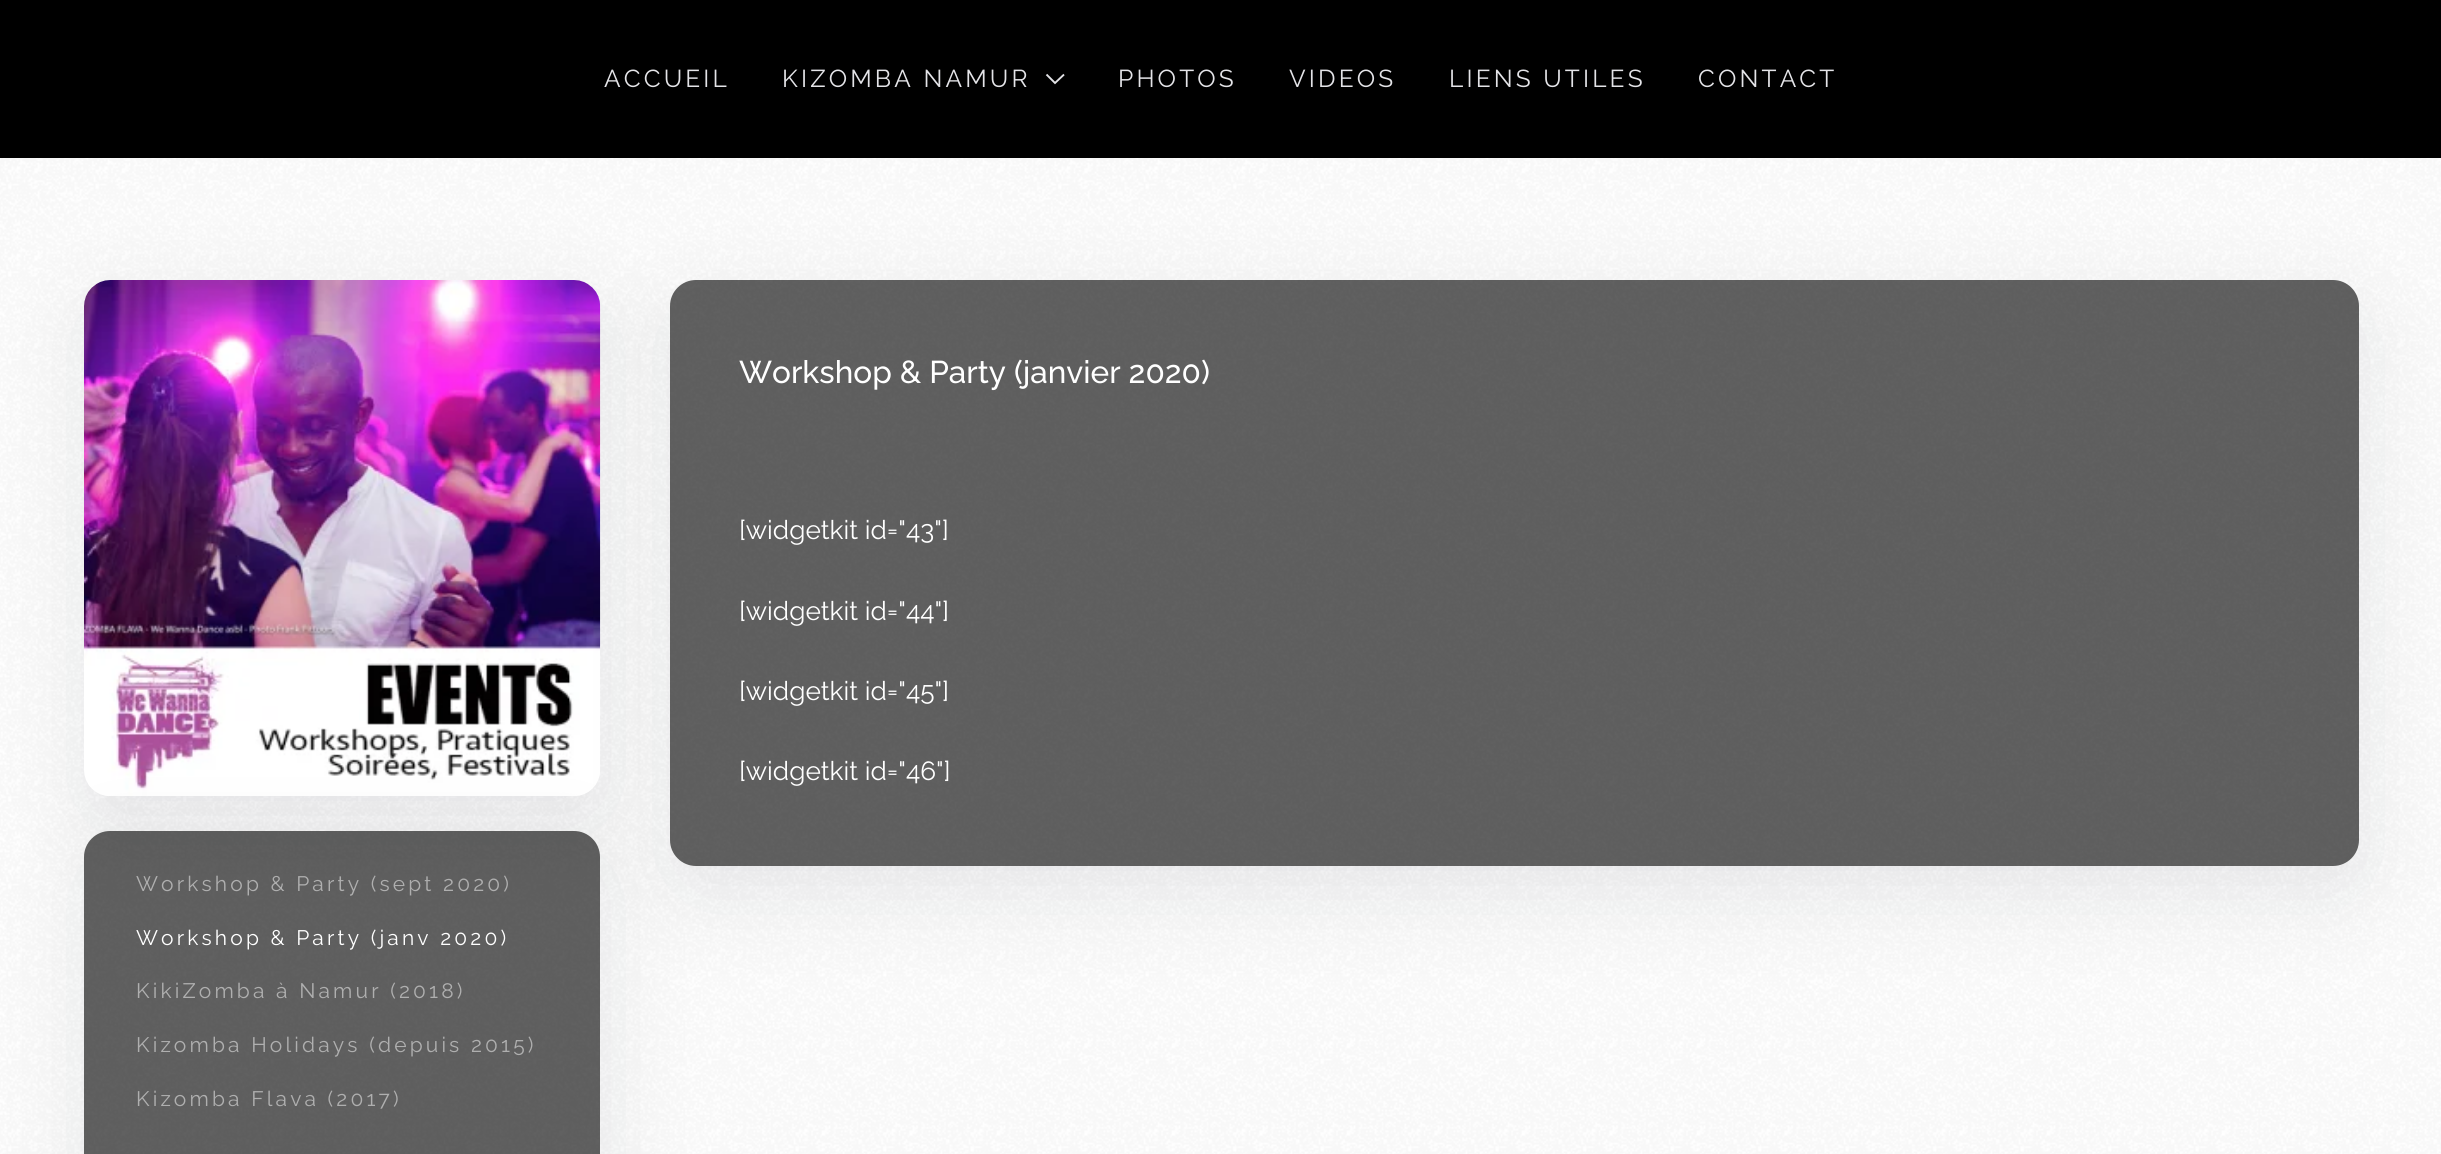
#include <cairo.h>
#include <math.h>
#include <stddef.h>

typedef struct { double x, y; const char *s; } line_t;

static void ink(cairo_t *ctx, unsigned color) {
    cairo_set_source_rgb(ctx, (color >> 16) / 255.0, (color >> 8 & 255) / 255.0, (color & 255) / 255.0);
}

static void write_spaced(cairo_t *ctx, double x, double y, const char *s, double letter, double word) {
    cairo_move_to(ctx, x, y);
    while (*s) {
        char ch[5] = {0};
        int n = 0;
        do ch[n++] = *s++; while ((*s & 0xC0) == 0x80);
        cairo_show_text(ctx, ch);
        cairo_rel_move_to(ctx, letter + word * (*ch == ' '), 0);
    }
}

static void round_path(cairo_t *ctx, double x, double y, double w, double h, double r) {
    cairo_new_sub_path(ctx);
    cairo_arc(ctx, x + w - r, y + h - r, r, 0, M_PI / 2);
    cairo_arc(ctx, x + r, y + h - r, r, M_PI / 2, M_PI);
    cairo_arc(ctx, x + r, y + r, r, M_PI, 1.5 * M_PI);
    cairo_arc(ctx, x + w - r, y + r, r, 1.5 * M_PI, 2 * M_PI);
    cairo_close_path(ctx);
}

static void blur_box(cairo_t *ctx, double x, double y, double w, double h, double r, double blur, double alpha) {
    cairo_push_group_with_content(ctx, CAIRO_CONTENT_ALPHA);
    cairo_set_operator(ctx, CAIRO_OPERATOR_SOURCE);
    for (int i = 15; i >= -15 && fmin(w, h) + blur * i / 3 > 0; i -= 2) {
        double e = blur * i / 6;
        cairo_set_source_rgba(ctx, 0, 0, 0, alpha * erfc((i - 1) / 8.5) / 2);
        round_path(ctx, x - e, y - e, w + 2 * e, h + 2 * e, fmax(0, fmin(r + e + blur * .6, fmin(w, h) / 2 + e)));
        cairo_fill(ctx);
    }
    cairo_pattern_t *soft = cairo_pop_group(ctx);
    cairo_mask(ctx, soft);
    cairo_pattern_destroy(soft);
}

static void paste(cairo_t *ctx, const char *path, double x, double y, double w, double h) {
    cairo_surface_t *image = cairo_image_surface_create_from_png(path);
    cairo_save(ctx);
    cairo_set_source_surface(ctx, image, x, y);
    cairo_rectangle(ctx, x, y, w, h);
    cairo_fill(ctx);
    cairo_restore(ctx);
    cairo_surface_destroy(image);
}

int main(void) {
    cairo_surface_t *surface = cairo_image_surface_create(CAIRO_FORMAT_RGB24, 2441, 1154);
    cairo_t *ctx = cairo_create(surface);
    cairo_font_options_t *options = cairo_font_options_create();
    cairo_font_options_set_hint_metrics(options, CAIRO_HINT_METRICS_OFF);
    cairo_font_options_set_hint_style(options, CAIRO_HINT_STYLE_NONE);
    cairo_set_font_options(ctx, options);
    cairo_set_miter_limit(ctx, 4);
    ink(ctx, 0xFFFFFF);
    cairo_paint(ctx);
    ink(ctx, 0x000000);
    cairo_rectangle(ctx, 0, 0, 2441, 158);
    cairo_fill(ctx);
    cairo_select_font_face(ctx, "Raleway Thin", CAIRO_FONT_SLANT_NORMAL, CAIRO_FONT_WEIGHT_NORMAL);
    cairo_set_font_size(ctx, 24.5);
    ink(ctx, 0xE4E4E8);
    write_spaced(ctx, 604, 87, "ACCUEIL", 3.15, 0);
    write_spaced(ctx, 782, 87, "KIZOMBA NAMUR", 3.15, 0);
    cairo_new_path(ctx);
    cairo_move_to(ctx, 1046.5, 74.5);
    cairo_line_to(ctx, 1055, 83);
    cairo_line_to(ctx, 1064, 74.5);
    cairo_set_line_width(ctx, 1.9);
    cairo_stroke(ctx);
    {
        static const line_t items[] = {
            {1118, 87, "PHOTOS"},
            {1289, 87, "VIDEOS"},
            {1449, 87, "LIENS UTILES"},
            {1698, 87, "CONTACT"},
        };
        for (size_t i = 0; i < sizeof items / sizeof *items; i++) {
            write_spaced(ctx, items[i].x, items[i].y, items[i].s, 3.15, 0);
        }
    }
    paste(ctx, "media/1.png", 0, 158, 2441, 996);
    ink(ctx, 0x292C3D);
    blur_box(ctx, 88, 306, 516, 517, 26, 44, 0.1);
    paste(ctx, "media/2.png", 84, 280, 517, 516);
    cairo_save(ctx);
    cairo_set_fill_rule(ctx, CAIRO_FILL_RULE_EVEN_ODD);
    cairo_new_path(ctx);
    cairo_move_to(ctx, 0, 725);
    cairo_line_to(ctx, 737, 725);
    cairo_line_to(ctx, 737, 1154);
    cairo_line_to(ctx, 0, 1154);
    cairo_close_path(ctx);
    cairo_move_to(ctx, 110, 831);
    cairo_line_to(ctx, 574, 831);
    cairo_curve_to(ctx, 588.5, 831, 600, 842.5, 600, 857);
    cairo_line_to(ctx, 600, 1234);
    cairo_curve_to(ctx, 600, 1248.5, 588.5, 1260, 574, 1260);
    cairo_line_to(ctx, 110, 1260);
    cairo_curve_to(ctx, 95.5, 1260, 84, 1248.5, 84, 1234);
    cairo_line_to(ctx, 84, 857);
    cairo_curve_to(ctx, 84, 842.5, 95.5, 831, 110, 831);
    cairo_close_path(ctx);
    cairo_clip(ctx);
    blur_box(ctx, 88, 858, 516, 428, 26, 44, 0.1);
    cairo_restore(ctx);
    cairo_set_source_rgba(ctx, 0, 0, 0, 0.62);
    round_path(ctx, 84, 831, 516, 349, 26);
    cairo_fill(ctx);
    cairo_save(ctx);
    cairo_set_fill_rule(ctx, CAIRO_FILL_RULE_EVEN_ODD);
    cairo_new_path(ctx);
    cairo_move_to(ctx, 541, 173);
    cairo_line_to(ctx, 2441, 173);
    cairo_line_to(ctx, 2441, 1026);
    cairo_line_to(ctx, 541, 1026);
    cairo_close_path(ctx);
    cairo_move_to(ctx, 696, 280);
    cairo_line_to(ctx, 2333, 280);
    cairo_curve_to(ctx, 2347.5, 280, 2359, 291.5, 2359, 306);
    cairo_line_to(ctx, 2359, 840);
    cairo_curve_to(ctx, 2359, 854.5, 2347.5, 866, 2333, 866);
    cairo_line_to(ctx, 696, 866);
    cairo_curve_to(ctx, 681.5, 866, 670, 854.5, 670, 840);
    cairo_line_to(ctx, 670, 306);
    cairo_curve_to(ctx, 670, 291.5, 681.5, 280, 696, 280);
    cairo_close_path(ctx);
    cairo_clip(ctx);
    ink(ctx, 0x292C3D);
    blur_box(ctx, 674, 306, 1689, 587, 26, 44, 0.1);
    cairo_restore(ctx);
    round_path(ctx, 670, 280, 1689, 586, 26);
    cairo_fill(ctx);
    cairo_select_font_face(ctx, "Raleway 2 Thin", CAIRO_FONT_SLANT_NORMAL, CAIRO_FONT_WEIGHT_NORMAL);
    cairo_set_font_size(ctx, 31.5);
    ink(ctx, 0xFFFFFF);
    cairo_move_to(ctx, 739, 383);
    cairo_show_text(ctx, "Workshop & Party (janvier 2020)");
    cairo_select_font_face(ctx, "Raleway Thin", CAIRO_FONT_SLANT_NORMAL, CAIRO_FONT_WEIGHT_NORMAL);
    cairo_set_font_size(ctx, 26.25);
    {
        static const line_t items[] = {
            {739, 539, "[widgetkit id=\"43\"]"},
            {739, 620, "[widgetkit id=\"44\"]"},
            {739, 700, "[widgetkit id=\"45\"]"},
            {739, 780, "[widgetkit id=\"46\"]"},
        };
        for (size_t i = 0; i < sizeof items / sizeof *items; i++) {
            cairo_move_to(ctx, items[i].x, items[i].y);
            cairo_show_text(ctx, items[i].s);
        }
    }
    cairo_set_font_size(ctx, 21);
    ink(ctx, 0xAFAFAF);
    write_spaced(ctx, 136, 891, "Workshop & Party (sept 2020)", 3.15, 0);
    ink(ctx, 0xFFFFFF);
    write_spaced(ctx, 136, 945, "Workshop & Party (janv 2020)", 3.15, 0);
    ink(ctx, 0xAFAFAF);
    {
        static const line_t items[] = {
            {136, 998, "KikiZomba à Namur (2018)"},
            {136, 1052, "Kizomba Holidays (depuis 2015)"},
            {136, 1106, "Kizomba Flava (2017)"},
        };
        for (size_t i = 0; i < sizeof items / sizeof *items; i++) {
            write_spaced(ctx, items[i].x, items[i].y, items[i].s, 3.15, 0);
        }
    }
    cairo_surface_write_to_png(surface, "image.png");
    cairo_font_options_destroy(options);
    cairo_destroy(ctx);
    cairo_surface_destroy(surface);
    return 0;
}
